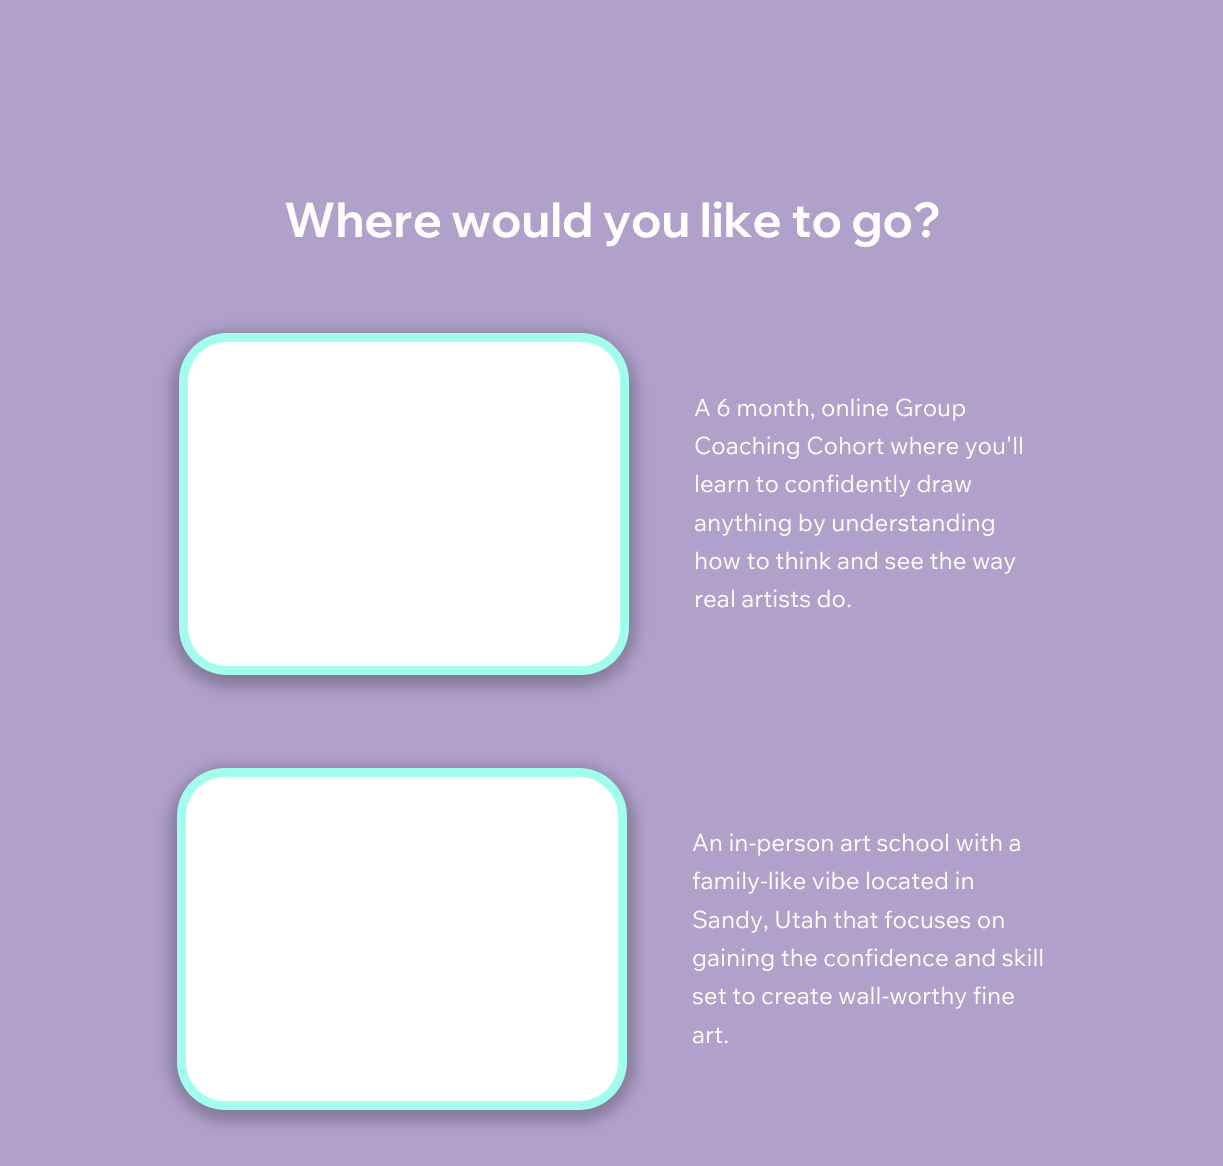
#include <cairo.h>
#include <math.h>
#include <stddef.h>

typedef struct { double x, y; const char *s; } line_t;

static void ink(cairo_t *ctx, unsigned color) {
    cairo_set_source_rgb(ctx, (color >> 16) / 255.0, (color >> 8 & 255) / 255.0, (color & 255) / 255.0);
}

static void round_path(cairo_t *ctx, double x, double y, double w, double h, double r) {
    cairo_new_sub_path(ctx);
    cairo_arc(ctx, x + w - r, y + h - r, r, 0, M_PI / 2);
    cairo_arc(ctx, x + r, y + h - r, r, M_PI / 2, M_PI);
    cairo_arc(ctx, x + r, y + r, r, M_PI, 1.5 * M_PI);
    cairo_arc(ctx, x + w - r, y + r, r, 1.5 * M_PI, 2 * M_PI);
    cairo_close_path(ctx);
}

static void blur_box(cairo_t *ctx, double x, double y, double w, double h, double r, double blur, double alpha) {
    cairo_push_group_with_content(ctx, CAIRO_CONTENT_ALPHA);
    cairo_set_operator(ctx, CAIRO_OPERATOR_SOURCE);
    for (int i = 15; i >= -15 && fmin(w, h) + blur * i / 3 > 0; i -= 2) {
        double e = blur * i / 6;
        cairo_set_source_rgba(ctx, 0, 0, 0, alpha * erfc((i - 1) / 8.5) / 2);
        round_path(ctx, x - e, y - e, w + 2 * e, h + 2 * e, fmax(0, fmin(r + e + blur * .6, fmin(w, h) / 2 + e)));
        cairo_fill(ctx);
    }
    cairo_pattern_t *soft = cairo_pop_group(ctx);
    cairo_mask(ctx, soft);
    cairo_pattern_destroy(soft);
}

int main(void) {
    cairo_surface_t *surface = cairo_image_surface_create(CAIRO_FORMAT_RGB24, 1223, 1166);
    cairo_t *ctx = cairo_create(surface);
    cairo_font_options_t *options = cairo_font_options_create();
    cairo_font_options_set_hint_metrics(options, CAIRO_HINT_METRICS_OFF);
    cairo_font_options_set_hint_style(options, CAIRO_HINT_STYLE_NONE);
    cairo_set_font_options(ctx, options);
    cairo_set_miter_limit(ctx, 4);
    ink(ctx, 0xB0A1CB);
    cairo_paint(ctx);
    cairo_select_font_face(ctx, "Wix Madefor Display", CAIRO_FONT_SLANT_NORMAL, CAIRO_FONT_WEIGHT_BOLD);
    cairo_set_font_size(ctx, 48);
    ink(ctx, 0xFFFFFF);
    cairo_move_to(ctx, 284, 237);
    cairo_show_text(ctx, "Where would you like to go?");
    ink(ctx, 0x000000);
    blur_box(ctx, 171, 332, 465, 355, 56, 7.5, 0.25);
    ink(ctx, 0xFFFFFF);
    round_path(ctx, 183.5, 337.5, 441, 333, 43.5);
    cairo_fill_preserve(ctx);
    ink(ctx, 0xA2FDED);
    cairo_set_line_width(ctx, 9);
    cairo_stroke(ctx);
    cairo_select_font_face(ctx, "Wix Madefor Text", CAIRO_FONT_SLANT_NORMAL, CAIRO_FONT_WEIGHT_NORMAL);
    cairo_set_font_size(ctx, 24);
    ink(ctx, 0xFFFFFF);
    {
        static const line_t items[] = {
            {694, 416, "A 6 month, online Group"},
            {694, 454, "Coaching Cohort where you'll"},
            {694, 492, "learn to confidently draw"},
            {694, 531, "anything by understanding"},
            {694, 569, "how to think and see the way"},
            {694, 607, "real artists do."},
        };
        for (size_t i = 0; i < sizeof items / sizeof *items; i++) {
            cairo_move_to(ctx, items[i].x, items[i].y);
            cairo_show_text(ctx, items[i].s);
        }
    }
    ink(ctx, 0x000000);
    blur_box(ctx, 170, 767, 465, 355, 56, 7.5, 0.25);
    ink(ctx, 0xFFFFFF);
    round_path(ctx, 181.5, 772.5, 441, 333, 43.5);
    cairo_fill_preserve(ctx);
    ink(ctx, 0xA2FDED);
    cairo_stroke(ctx);
    ink(ctx, 0xFFFFFF);
    {
        static const line_t items[] = {
            {692, 851, "An in-person art school with a"},
            {692, 889, "family-like vibe located in"},
            {692, 928, "Sandy, Utah that focuses on"},
            {692, 966, "gaining the confidence and skill"},
            {692, 1004, "set to create wall-worthy fine"},
            {692, 1043, "art."},
        };
        for (size_t i = 0; i < sizeof items / sizeof *items; i++) {
            cairo_move_to(ctx, items[i].x, items[i].y);
            cairo_show_text(ctx, items[i].s);
        }
    }
    cairo_surface_write_to_png(surface, "image.png");
    cairo_font_options_destroy(options);
    cairo_destroy(ctx);
    cairo_surface_destroy(surface);
    return 0;
}
